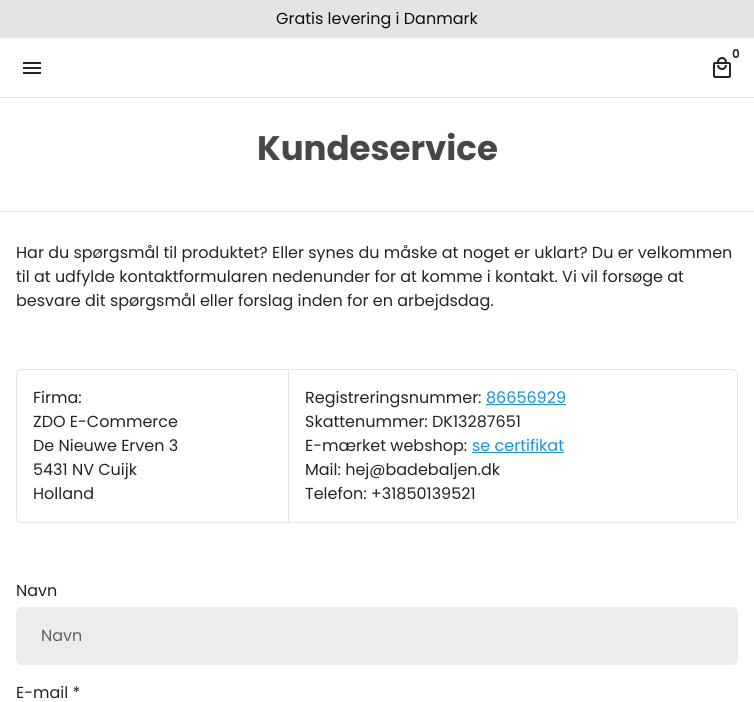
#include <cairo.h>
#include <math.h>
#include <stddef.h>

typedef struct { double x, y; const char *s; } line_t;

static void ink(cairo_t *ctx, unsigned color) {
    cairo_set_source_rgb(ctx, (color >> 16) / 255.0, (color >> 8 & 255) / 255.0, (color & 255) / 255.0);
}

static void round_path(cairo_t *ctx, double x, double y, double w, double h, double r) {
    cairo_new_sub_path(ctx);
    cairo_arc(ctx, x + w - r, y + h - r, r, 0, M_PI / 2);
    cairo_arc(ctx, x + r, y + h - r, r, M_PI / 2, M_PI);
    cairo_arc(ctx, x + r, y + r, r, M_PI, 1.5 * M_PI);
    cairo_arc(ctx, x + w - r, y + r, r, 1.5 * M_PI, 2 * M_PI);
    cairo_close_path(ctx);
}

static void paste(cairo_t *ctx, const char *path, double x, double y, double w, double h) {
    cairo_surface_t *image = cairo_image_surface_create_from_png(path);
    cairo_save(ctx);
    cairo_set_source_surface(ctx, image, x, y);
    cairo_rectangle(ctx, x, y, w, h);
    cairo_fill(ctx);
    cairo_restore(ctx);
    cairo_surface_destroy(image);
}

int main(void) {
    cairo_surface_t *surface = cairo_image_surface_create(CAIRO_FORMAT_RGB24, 754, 702);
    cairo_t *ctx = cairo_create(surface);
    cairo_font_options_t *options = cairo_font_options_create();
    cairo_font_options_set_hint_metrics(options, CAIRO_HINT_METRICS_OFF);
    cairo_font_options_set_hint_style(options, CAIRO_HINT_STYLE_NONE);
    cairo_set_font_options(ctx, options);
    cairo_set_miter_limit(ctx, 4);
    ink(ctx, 0xFFFFFF);
    cairo_paint(ctx);
    ink(ctx, 0xE4E4E4);
    cairo_rectangle(ctx, 0, 0, 754, 38);
    cairo_fill(ctx);
    cairo_select_font_face(ctx, "Poppins", CAIRO_FONT_SLANT_NORMAL, CAIRO_FONT_WEIGHT_NORMAL);
    cairo_set_font_size(ctx, 16);
    ink(ctx, 0x0D0E0E);
    cairo_move_to(ctx, 276, 24);
    cairo_show_text(ctx, "Gratis levering i Danmark");
    ink(ctx, 0xE5E5E5);
    cairo_rectangle(ctx, 0, 97, 754, 1);
    cairo_fill(ctx);
    cairo_select_font_face(ctx, "Poppins SemiBold", CAIRO_FONT_SLANT_NORMAL, CAIRO_FONT_WEIGHT_NORMAL);
    cairo_set_font_size(ctx, 12);
    ink(ctx, 0x212529);
    cairo_move_to(ctx, 732, 58);
    cairo_show_text(ctx, "0");
    paste(ctx, "media/1.png", 713, 57, 18, 21);
    paste(ctx, "media/2.png", 23, 62, 18, 12);
    cairo_select_font_face(ctx, "Poppins", CAIRO_FONT_SLANT_NORMAL, CAIRO_FONT_WEIGHT_BOLD);
    cairo_set_font_size(ctx, 34);
    ink(ctx, 0x494646);
    cairo_move_to(ctx, 257, 160);
    cairo_show_text(ctx, "Kundeservice");
    ink(ctx, 0xE5E5E5);
    cairo_rectangle(ctx, 0, 211, 754, 1);
    cairo_fill(ctx);
    cairo_select_font_face(ctx, "Poppins", CAIRO_FONT_SLANT_NORMAL, CAIRO_FONT_WEIGHT_NORMAL);
    cairo_set_font_size(ctx, 16);
    ink(ctx, 0x212529);
    {
        static const line_t items[] = {
            {16, 258, "Har du spørgsmål til produktet? Eller synes du måske at noget er uklart? Du er velkommen"},
            {16, 282, "til at udfylde kontaktformularen nedenunder for at komme i kontakt. Vi vil forsøge at"},
            {16, 306, "besvare dit spørgsmål eller forslag inden for en arbejdsdag."},
        };
        for (size_t i = 0; i < sizeof items / sizeof *items; i++) {
            cairo_move_to(ctx, items[i].x, items[i].y);
            cairo_show_text(ctx, items[i].s);
        }
    }
    round_path(ctx, 16.5, 369.5, 721, 153, 5.5);
    ink(ctx, 0xE5E5E5);
    cairo_set_line_width(ctx, 1);
    cairo_stroke(ctx);
    cairo_set_source_rgba(ctx, 1, 1, 1, 0.6);
    round_path(ctx, 17, 370, 720, 152, 5);
    cairo_fill(ctx);
    ink(ctx, 0xE5E5E5);
    cairo_rectangle(ctx, 288, 370, 1, 152);
    cairo_fill(ctx);
    ink(ctx, 0x212529);
    {
        static const line_t items[] = {
            {33, 403, "Firma:"},
            {33, 427, "ZDO E-Commerce"},
            {33, 451, "De Nieuwe Erven 3"},
            {33, 475, "5431 NV Cuijk"},
            {33, 499, "Holland"},
            {305, 403, "Registreringsnummer:"},
        };
        for (size_t i = 0; i < sizeof items / sizeof *items; i++) {
            cairo_move_to(ctx, items[i].x, items[i].y);
            cairo_show_text(ctx, items[i].s);
        }
    }
    ink(ctx, 0x198EED);
    cairo_move_to(ctx, 486, 403);
    cairo_show_text(ctx, "86656929");
    cairo_rectangle(ctx, 486, 404, 80, 1);
    cairo_fill(ctx);
    ink(ctx, 0x212529);
    cairo_move_to(ctx, 305, 427);
    cairo_show_text(ctx, "Skattenummer: DK13287651");
    cairo_move_to(ctx, 305, 451);
    cairo_show_text(ctx, "E-mærket webshop:");
    ink(ctx, 0x198EED);
    cairo_move_to(ctx, 472, 451);
    cairo_show_text(ctx, "se certifikat");
    cairo_rectangle(ctx, 472, 452, 92, 1);
    cairo_fill(ctx);
    ink(ctx, 0x212529);
    {
        static const line_t items[] = {
            {305, 475, "Mail: hej@badebaljen.dk"},
            {305, 499, "Telefon: +31850139521"},
            {16, 596, "Navn"},
        };
        for (size_t i = 0; i < sizeof items / sizeof *items; i++) {
            cairo_move_to(ctx, items[i].x, items[i].y);
            cairo_show_text(ctx, items[i].s);
        }
    }
    ink(ctx, 0xECECEC);
    round_path(ctx, 16.5, 607.5, 721, 57, 5.5);
    cairo_fill_preserve(ctx);
    cairo_stroke(ctx);
    ink(ctx, 0x5E6164);
    cairo_move_to(ctx, 41, 641);
    cairo_show_text(ctx, "Navn");
    ink(ctx, 0x212529);
    cairo_move_to(ctx, 16, 698);
    cairo_show_text(ctx, "E-mail *");
    cairo_surface_write_to_png(surface, "image.png");
    cairo_font_options_destroy(options);
    cairo_destroy(ctx);
    cairo_surface_destroy(surface);
    return 0;
}
